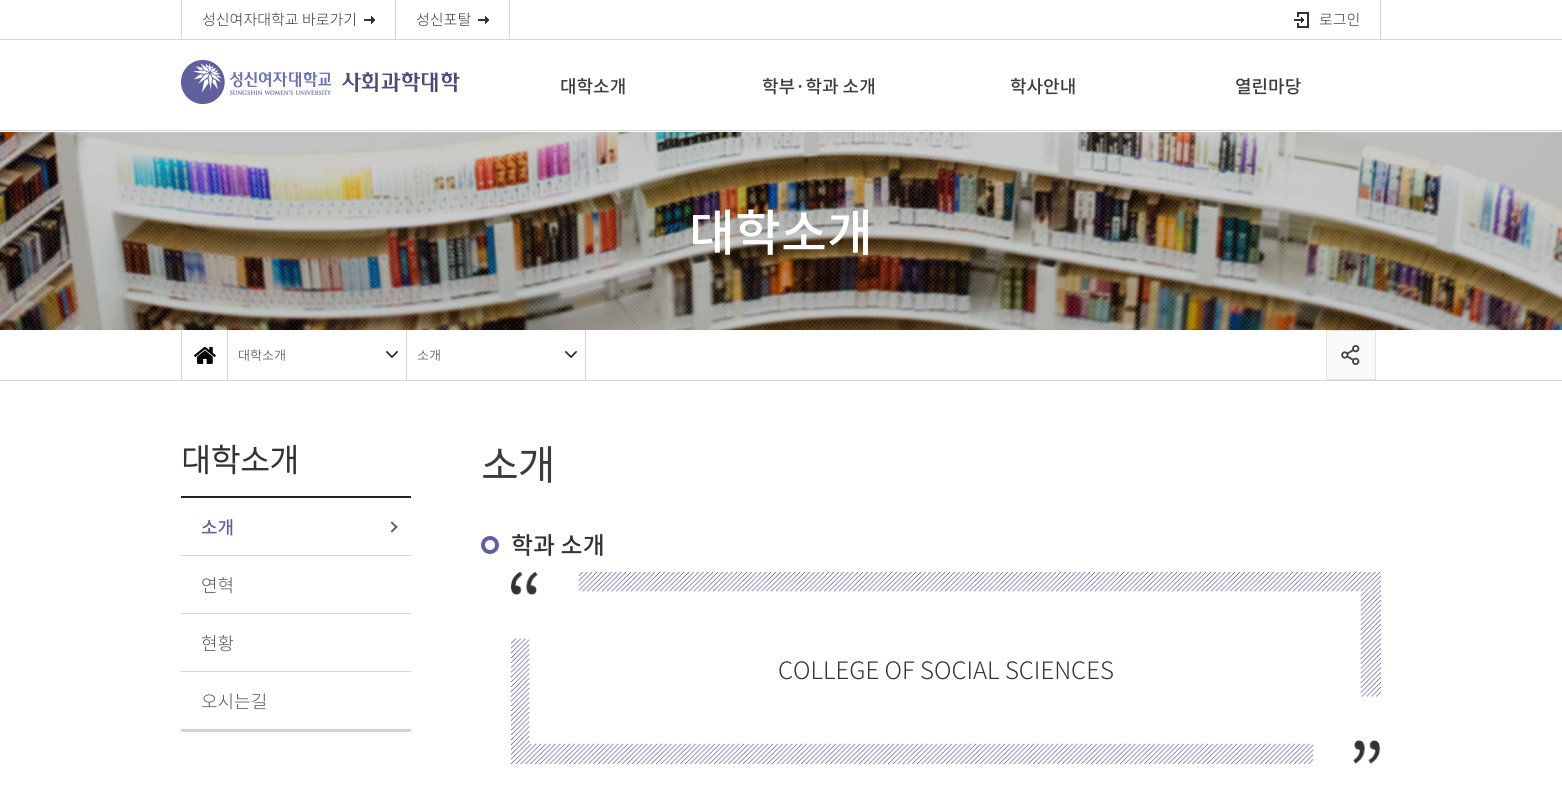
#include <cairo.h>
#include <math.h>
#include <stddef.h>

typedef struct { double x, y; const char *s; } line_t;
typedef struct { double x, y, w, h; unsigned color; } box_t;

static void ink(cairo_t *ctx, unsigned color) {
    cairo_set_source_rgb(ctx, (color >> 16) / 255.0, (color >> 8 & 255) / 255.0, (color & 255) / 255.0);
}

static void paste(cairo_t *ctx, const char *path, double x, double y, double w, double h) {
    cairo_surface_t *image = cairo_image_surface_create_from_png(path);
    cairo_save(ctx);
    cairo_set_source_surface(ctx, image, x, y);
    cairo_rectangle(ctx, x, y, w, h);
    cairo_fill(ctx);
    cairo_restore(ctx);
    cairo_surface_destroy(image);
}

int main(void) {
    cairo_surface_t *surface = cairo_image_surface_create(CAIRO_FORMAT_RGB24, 1562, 790);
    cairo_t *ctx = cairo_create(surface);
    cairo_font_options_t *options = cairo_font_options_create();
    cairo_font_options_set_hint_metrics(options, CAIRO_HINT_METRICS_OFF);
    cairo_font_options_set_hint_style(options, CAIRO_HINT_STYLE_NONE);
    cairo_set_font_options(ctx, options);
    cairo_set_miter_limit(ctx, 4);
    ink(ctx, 0xFFFFFF);
    cairo_paint(ctx);
    {
        static const box_t items[] = {
            {0, 39, 1562, 1, 0xD4D4D4},
            {395, 0, 1, 39, 0xD4D4D4},
            {181, 0, 1, 39, 0xD4D4D4},
        };
        for (size_t i = 0; i < sizeof items / sizeof *items; i++) {
            ink(ctx, items[i].color);
            cairo_rectangle(ctx, items[i].x, items[i].y, items[i].w, items[i].h);
            cairo_fill(ctx);
        }
    }
    paste(ctx, "media/1.png", 364, 16, 11, 8);
    cairo_select_font_face(ctx, "Noto Sans KR Light", CAIRO_FONT_SLANT_NORMAL, CAIRO_FONT_WEIGHT_NORMAL);
    cairo_set_font_size(ctx, 15);
    ink(ctx, 0x333333);
    cairo_move_to(ctx, 202, 25);
    cairo_show_text(ctx, "성신여자대학교 바로가기");
    ink(ctx, 0xD4D4D4);
    cairo_rectangle(ctx, 509, 0, 1, 39);
    cairo_fill(ctx);
    paste(ctx, "media/1.png", 478, 16, 11, 8);
    ink(ctx, 0x333333);
    cairo_move_to(ctx, 416, 25);
    cairo_show_text(ctx, "성신포탈");
    ink(ctx, 0xD4D4D4);
    cairo_rectangle(ctx, 1380, 0, 1, 39);
    cairo_fill(ctx);
    paste(ctx, "media/2.png", 1294, 12, 15, 16);
    ink(ctx, 0x333333);
    cairo_move_to(ctx, 1319, 25);
    cairo_show_text(ctx, "로그인");
    ink(ctx, 0xD4D4D4);
    cairo_rectangle(ctx, 0, 130, 1562, 1);
    cairo_fill(ctx);
    paste(ctx, "media/3.png", 181, 60, 279, 44);
    cairo_select_font_face(ctx, "Noto Sans KR Medium", CAIRO_FONT_SLANT_NORMAL, CAIRO_FONT_WEIGHT_NORMAL);
    cairo_set_font_size(ctx, 18);
    ink(ctx, 0x3B3C40);
    {
        static const line_t items[] = {
            {560, 93, "대학소개"},
            {762, 93, "학부·학과 소개"},
            {1010, 93, "학사안내"},
            {1235, 93, "열린마당"},
        };
        for (size_t i = 0; i < sizeof items / sizeof *items; i++) {
            cairo_move_to(ctx, items[i].x, items[i].y);
            cairo_show_text(ctx, items[i].s);
        }
    }
    paste(ctx, "media/4.png", 0, 132, 1562, 198);
    cairo_set_font_size(ctx, 50);
    ink(ctx, 0xFFFFFF);
    cairo_move_to(ctx, 689, 251);
    cairo_show_text(ctx, "대학소개");
    ink(ctx, 0xD5D5D5);
    cairo_rectangle(ctx, 0, 380, 1562, 1);
    cairo_fill(ctx);
    paste(ctx, "media/5.png", 194, 347, 22, 17);
    {
        static const box_t items[] = {
            {181, 330, 1, 50, 0xD5D5D5},
            {406, 330, 1, 50, 0xD5D5D5},
            {227, 330, 1, 50, 0xD5D5D5},
        };
        for (size_t i = 0; i < sizeof items / sizeof *items; i++) {
            ink(ctx, items[i].color);
            cairo_rectangle(ctx, items[i].x, items[i].y, items[i].w, items[i].h);
            cairo_fill(ctx);
        }
    }
    cairo_select_font_face(ctx, "Noto Sans KR Light", CAIRO_FONT_SLANT_NORMAL, CAIRO_FONT_WEIGHT_NORMAL);
    cairo_set_font_size(ctx, 13);
    ink(ctx, 0x333333);
    cairo_move_to(ctx, 238, 360);
    cairo_show_text(ctx, "대학소개");
    paste(ctx, "media/6.png", 386, 351, 12, 7);
    ink(ctx, 0xD5D5D5);
    cairo_rectangle(ctx, 585, 330, 1, 50);
    cairo_fill(ctx);
    ink(ctx, 0x333333);
    cairo_move_to(ctx, 417, 360);
    cairo_show_text(ctx, "소개");
    paste(ctx, "media/6.png", 565, 351, 12, 7);
    ink(ctx, 0xF8F9FA);
    cairo_rectangle(ctx, 1327, 331, 48, 48);
    cairo_fill(ctx);
    paste(ctx, "media/7.png", 1341, 345, 19, 20);
    cairo_rectangle(ctx, 1326.5, 330.5, 49, 49);
    ink(ctx, 0xE1E4E7);
    cairo_set_line_width(ctx, 1);
    cairo_stroke(ctx);
    cairo_select_font_face(ctx, "Noto Sans KR", CAIRO_FONT_SLANT_NORMAL, CAIRO_FONT_WEIGHT_BOLD);
    cairo_set_font_size(ctx, 32);
    ink(ctx, 0x333333);
    cairo_move_to(ctx, 181, 472);
    cairo_show_text(ctx, "대학소개");
    ink(ctx, 0x222222);
    cairo_rectangle(ctx, 181, 496, 230, 2);
    cairo_fill(ctx);
    ink(ctx, 0xD4D4D4);
    cairo_rectangle(ctx, 181, 729, 230, 3);
    cairo_fill(ctx);
    paste(ctx, "media/8.png", 390, 521, 8, 12);
    cairo_select_font_face(ctx, "Noto Sans KR Medium", CAIRO_FONT_SLANT_NORMAL, CAIRO_FONT_WEIGHT_NORMAL);
    cairo_set_font_size(ctx, 18);
    ink(ctx, 0x60609F);
    cairo_move_to(ctx, 201, 534);
    cairo_show_text(ctx, "소개");
    ink(ctx, 0xD7D7D7);
    cairo_rectangle(ctx, 181, 555, 230, 1);
    cairo_fill(ctx);
    cairo_select_font_face(ctx, "Noto Sans KR Light", CAIRO_FONT_SLANT_NORMAL, CAIRO_FONT_WEIGHT_NORMAL);
    ink(ctx, 0x555555);
    cairo_move_to(ctx, 201, 592);
    cairo_show_text(ctx, "연혁");
    ink(ctx, 0xD7D7D7);
    cairo_rectangle(ctx, 181, 613, 230, 1);
    cairo_fill(ctx);
    ink(ctx, 0x555555);
    cairo_move_to(ctx, 201, 650);
    cairo_show_text(ctx, "현황");
    ink(ctx, 0xD7D7D7);
    cairo_rectangle(ctx, 181, 671, 230, 1);
    cairo_fill(ctx);
    ink(ctx, 0x555555);
    cairo_move_to(ctx, 201, 708);
    cairo_show_text(ctx, "오시는길");
    cairo_select_font_face(ctx, "Noto Sans KR", CAIRO_FONT_SLANT_NORMAL, CAIRO_FONT_WEIGHT_BOLD);
    cairo_set_font_size(ctx, 40);
    ink(ctx, 0x3B3C40);
    cairo_move_to(ctx, 481, 480);
    cairo_show_text(ctx, "소개");
    cairo_new_path(ctx);
    cairo_arc(ctx, 490, 545, 7, 0, 2 * M_PI);
    ink(ctx, 0x60609F);
    cairo_set_line_width(ctx, 4);
    cairo_stroke(ctx);
    cairo_select_font_face(ctx, "Noto Sans KR Medium", CAIRO_FONT_SLANT_NORMAL, CAIRO_FONT_WEIGHT_NORMAL);
    cairo_set_font_size(ctx, 24);
    ink(ctx, 0x333333);
    cairo_move_to(ctx, 511, 554);
    cairo_show_text(ctx, "학과 소개");
    paste(ctx, "media/9.png", 511, 572, 870, 193);
    cairo_select_font_face(ctx, "Noto Sans KR Light", CAIRO_FONT_SLANT_NORMAL, CAIRO_FONT_WEIGHT_NORMAL);
    cairo_move_to(ctx, 778, 679);
    cairo_show_text(ctx, "COLLEGE OF SOCIAL SCIENCES");
    cairo_surface_write_to_png(surface, "image.png");
    cairo_font_options_destroy(options);
    cairo_destroy(ctx);
    cairo_surface_destroy(surface);
    return 0;
}
